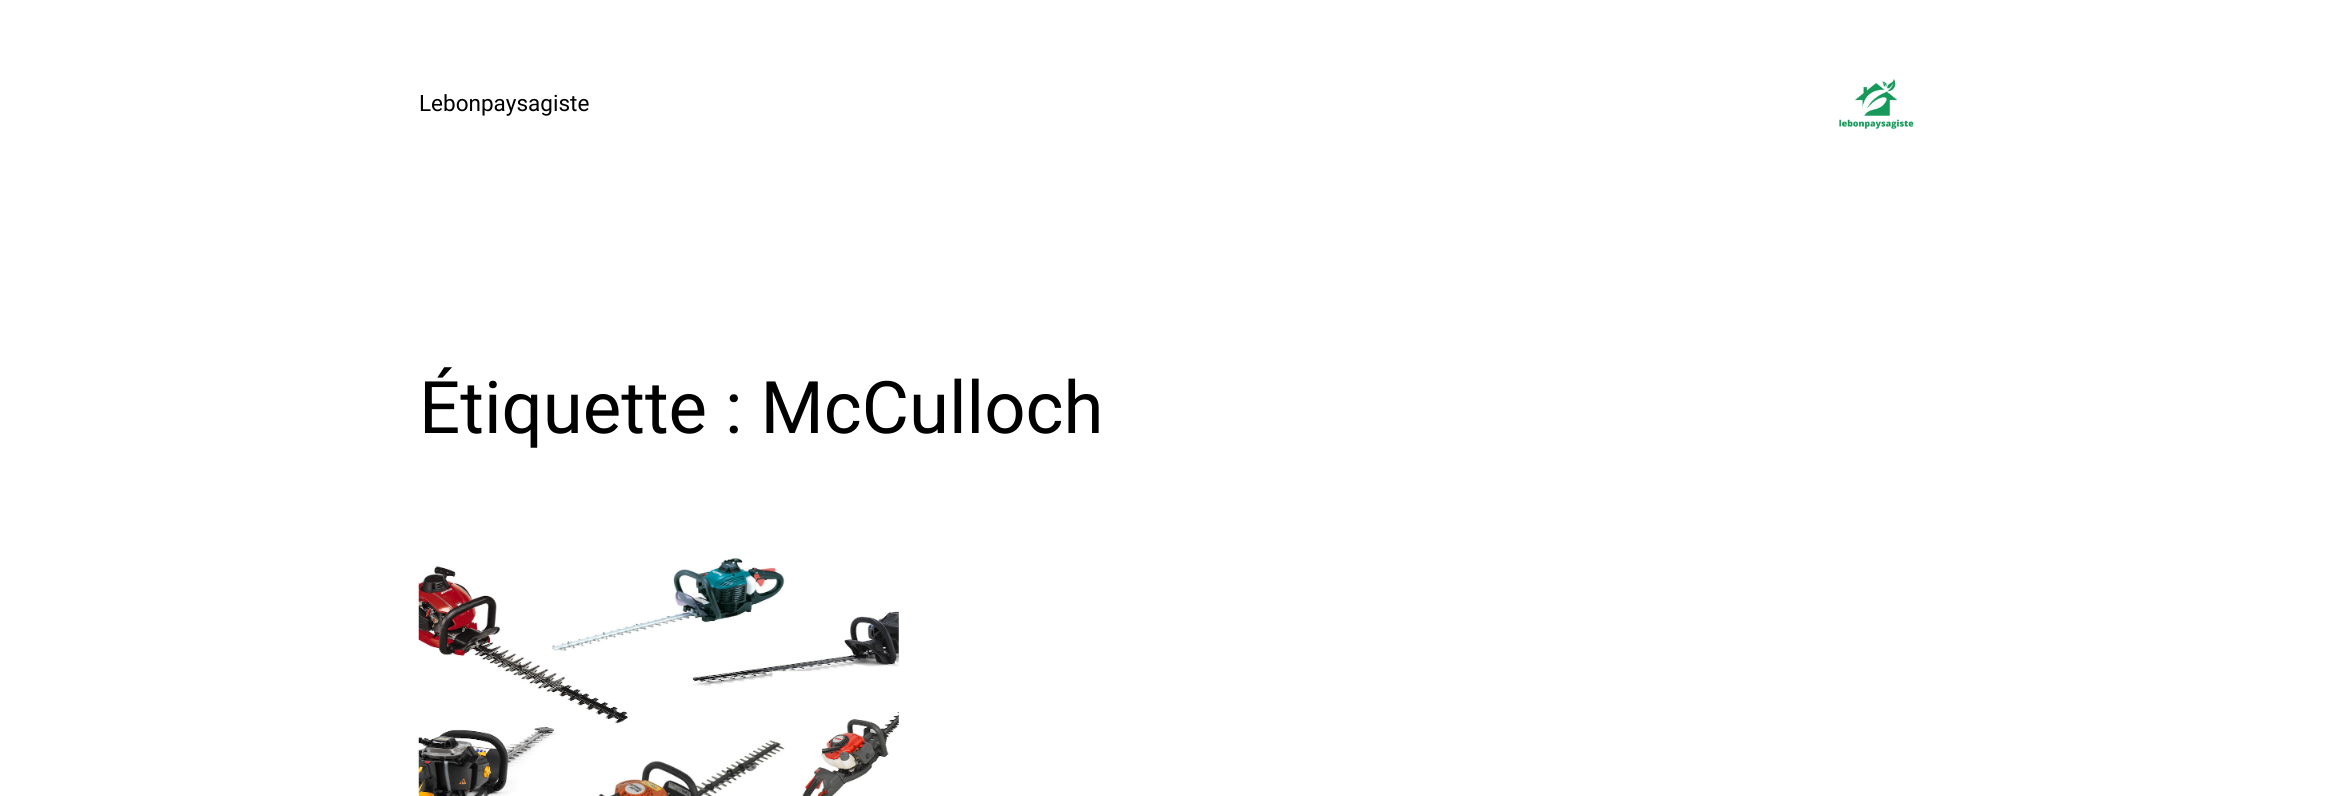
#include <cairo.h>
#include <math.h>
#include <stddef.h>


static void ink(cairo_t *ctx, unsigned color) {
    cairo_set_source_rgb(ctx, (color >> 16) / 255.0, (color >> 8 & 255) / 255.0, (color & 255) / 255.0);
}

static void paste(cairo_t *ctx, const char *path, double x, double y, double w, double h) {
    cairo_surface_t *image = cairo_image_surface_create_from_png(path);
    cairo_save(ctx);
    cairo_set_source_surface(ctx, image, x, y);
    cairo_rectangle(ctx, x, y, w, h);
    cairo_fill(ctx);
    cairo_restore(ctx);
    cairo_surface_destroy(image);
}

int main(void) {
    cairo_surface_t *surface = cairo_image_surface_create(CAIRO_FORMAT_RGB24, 2337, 796);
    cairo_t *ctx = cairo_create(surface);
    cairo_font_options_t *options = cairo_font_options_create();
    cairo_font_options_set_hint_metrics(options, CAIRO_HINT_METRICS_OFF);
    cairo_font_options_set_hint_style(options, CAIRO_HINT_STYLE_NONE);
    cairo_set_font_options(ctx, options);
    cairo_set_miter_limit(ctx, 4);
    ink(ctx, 0xFFFFFF);
    cairo_paint(ctx);
    cairo_select_font_face(ctx, "Roboto", CAIRO_FONT_SLANT_NORMAL, CAIRO_FONT_WEIGHT_NORMAL);
    cairo_set_font_size(ctx, 22.5);
    ink(ctx, 0x000000);
    cairo_move_to(ctx, 419, 111);
    cairo_show_text(ctx, "Lebonpaysagiste");
    paste(ctx, "media/1.png", 1839, 78, 75, 51);
    cairo_set_font_size(ctx, 72.5);
    cairo_move_to(ctx, 419, 433);
    cairo_show_text(ctx, "Étiquette : McCulloch");
    paste(ctx, "media/2.png", 418, 557, 481, 239);
    cairo_surface_write_to_png(surface, "image.png");
    cairo_font_options_destroy(options);
    cairo_destroy(ctx);
    cairo_surface_destroy(surface);
    return 0;
}
